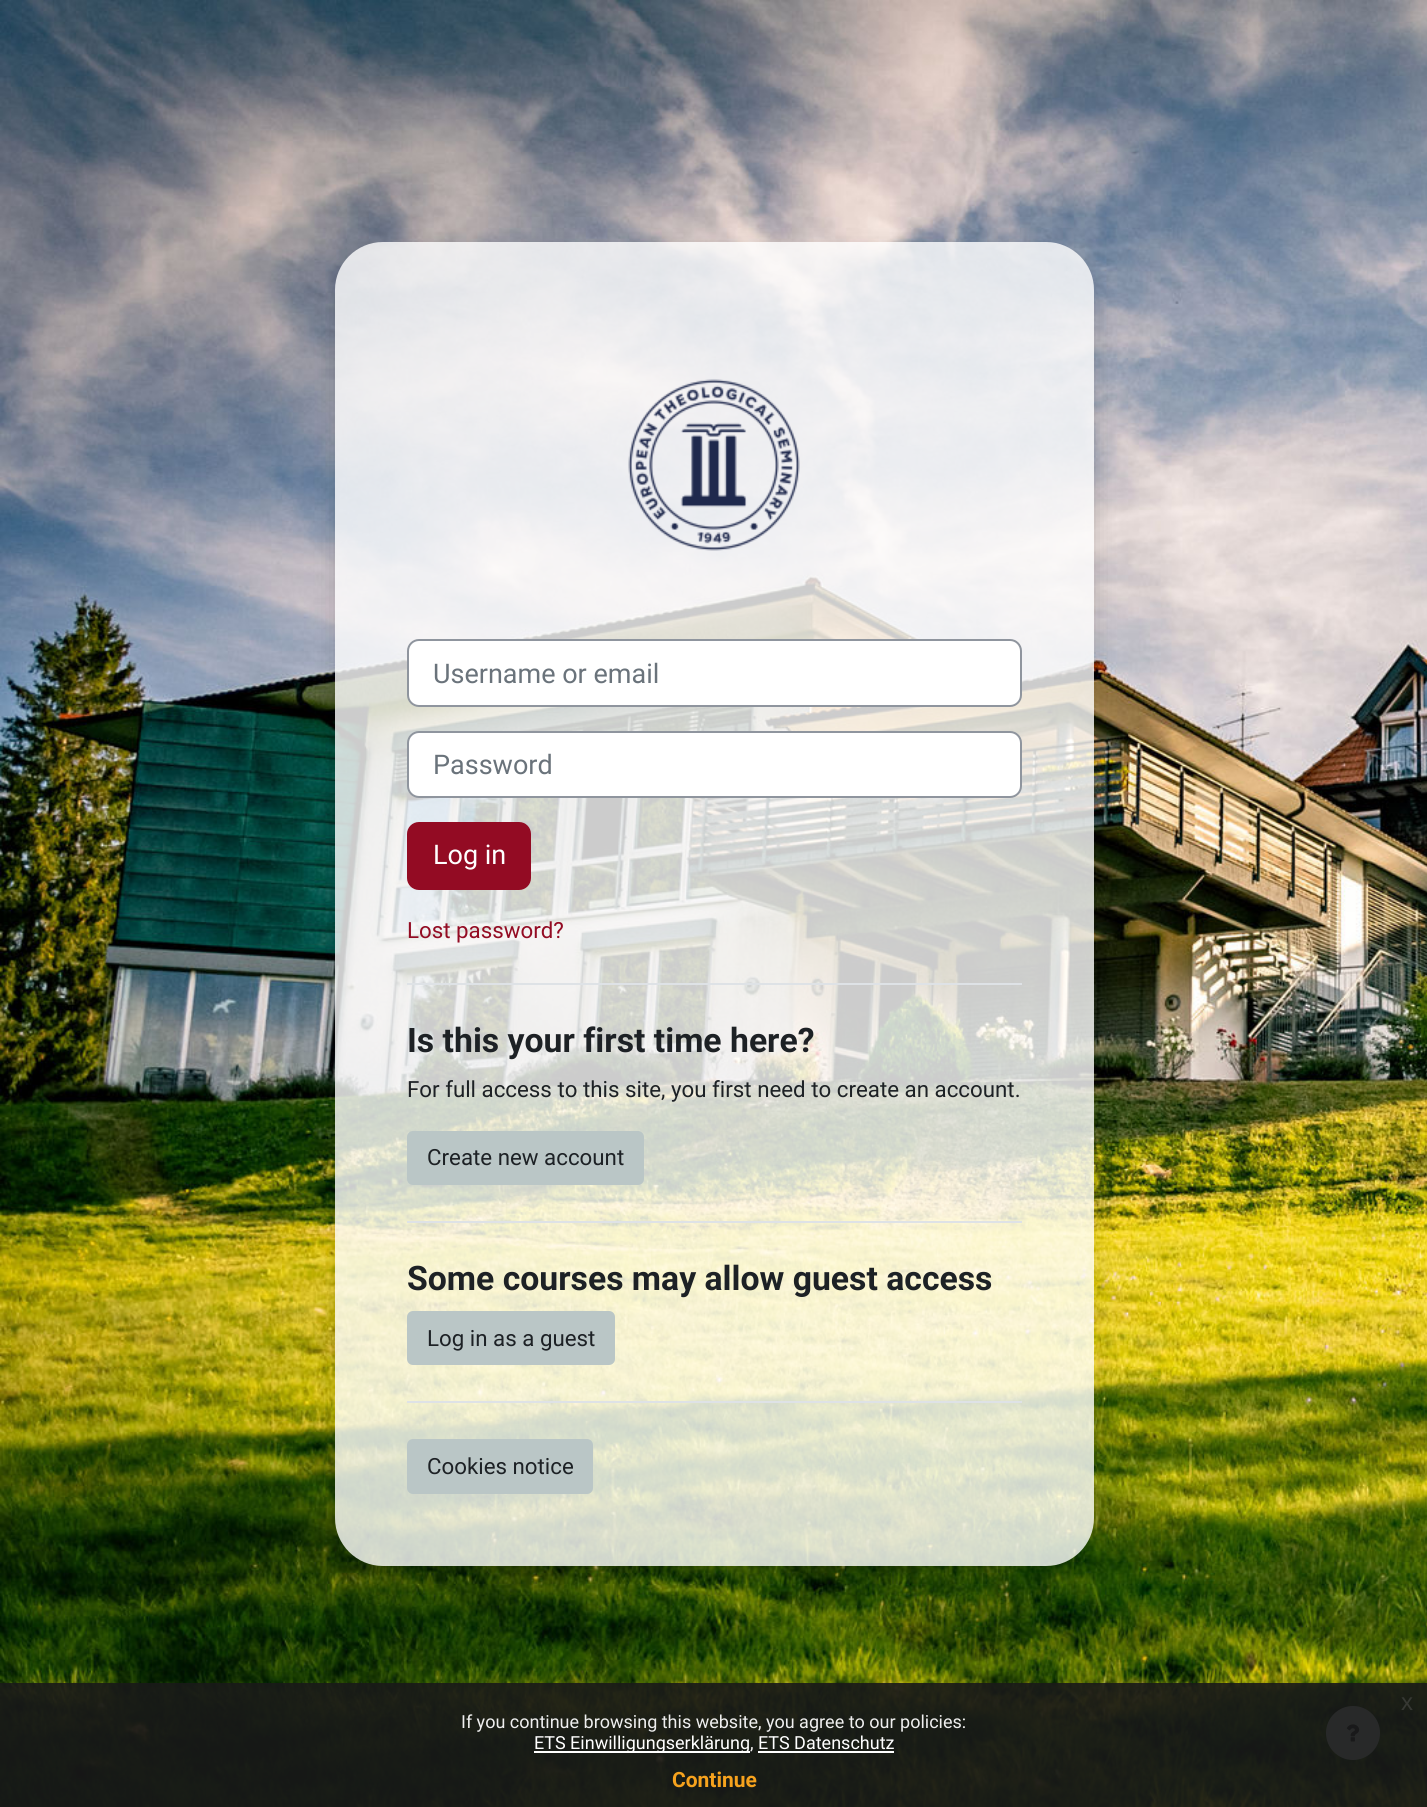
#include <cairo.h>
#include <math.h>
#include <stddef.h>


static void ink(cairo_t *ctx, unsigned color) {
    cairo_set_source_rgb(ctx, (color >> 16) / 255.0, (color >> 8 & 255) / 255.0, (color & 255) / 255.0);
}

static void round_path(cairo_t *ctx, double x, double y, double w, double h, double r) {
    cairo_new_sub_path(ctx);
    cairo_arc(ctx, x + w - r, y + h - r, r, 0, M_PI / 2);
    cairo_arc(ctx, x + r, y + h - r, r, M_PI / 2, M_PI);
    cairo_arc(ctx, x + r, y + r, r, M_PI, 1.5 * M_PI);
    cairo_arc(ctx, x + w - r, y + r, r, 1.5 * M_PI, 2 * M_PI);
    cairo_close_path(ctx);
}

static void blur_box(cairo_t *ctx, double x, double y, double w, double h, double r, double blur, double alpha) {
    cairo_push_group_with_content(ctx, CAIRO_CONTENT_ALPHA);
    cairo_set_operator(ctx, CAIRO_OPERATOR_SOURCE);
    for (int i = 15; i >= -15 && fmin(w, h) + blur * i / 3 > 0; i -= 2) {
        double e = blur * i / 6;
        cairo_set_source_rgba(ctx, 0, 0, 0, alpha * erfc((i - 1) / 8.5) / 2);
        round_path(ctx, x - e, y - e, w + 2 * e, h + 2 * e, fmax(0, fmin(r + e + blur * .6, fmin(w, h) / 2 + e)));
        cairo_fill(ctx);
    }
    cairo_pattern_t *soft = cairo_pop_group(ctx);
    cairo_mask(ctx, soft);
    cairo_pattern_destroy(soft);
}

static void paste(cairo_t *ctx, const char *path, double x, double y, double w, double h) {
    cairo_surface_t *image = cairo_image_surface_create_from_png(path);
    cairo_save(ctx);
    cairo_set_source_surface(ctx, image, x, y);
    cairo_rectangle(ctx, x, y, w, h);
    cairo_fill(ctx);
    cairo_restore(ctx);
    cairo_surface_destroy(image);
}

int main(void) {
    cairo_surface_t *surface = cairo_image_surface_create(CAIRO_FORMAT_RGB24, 1427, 1807);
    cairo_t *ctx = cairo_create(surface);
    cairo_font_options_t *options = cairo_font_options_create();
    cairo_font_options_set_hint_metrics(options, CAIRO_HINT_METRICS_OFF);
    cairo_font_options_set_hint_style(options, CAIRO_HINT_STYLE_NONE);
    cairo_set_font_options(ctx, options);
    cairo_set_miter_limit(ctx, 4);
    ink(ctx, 0xFFFFFF);
    cairo_paint(ctx);
    paste(ctx, "media/1.png", 0, 0, 1427, 1807);
    cairo_save(ctx);
    cairo_set_fill_rule(ctx, CAIRO_FILL_RULE_EVEN_ODD);
    cairo_new_path(ctx);
    cairo_move_to(ctx, 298, 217);
    cairo_line_to(ctx, 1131, 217);
    cairo_line_to(ctx, 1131, 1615);
    cairo_line_to(ctx, 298, 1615);
    cairo_close_path(ctx);
    cairo_move_to(ctx, 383, 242);
    cairo_line_to(ctx, 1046, 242);
    cairo_curve_to(ctx, 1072.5, 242, 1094, 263.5, 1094, 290);
    cairo_line_to(ctx, 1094, 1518);
    cairo_curve_to(ctx, 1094, 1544.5, 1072.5, 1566, 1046, 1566);
    cairo_line_to(ctx, 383, 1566);
    cairo_curve_to(ctx, 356.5, 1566, 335, 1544.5, 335, 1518);
    cairo_line_to(ctx, 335, 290);
    cairo_curve_to(ctx, 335, 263.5, 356.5, 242, 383, 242);
    cairo_close_path(ctx);
    cairo_clip(ctx);
    ink(ctx, 0x000000);
    blur_box(ctx, 335, 254, 759, 1324, 48, 12, 0.15);
    cairo_restore(ctx);
    cairo_set_source_rgba(ctx, 1, 1, 1, 0.8);
    round_path(ctx, 335, 242, 759, 1324, 48);
    cairo_fill(ctx);
    paste(ctx, "media/2.png", 628, 379, 172, 172);
    ink(ctx, 0xFFFFFF);
    round_path(ctx, 408, 640, 613, 66, 11);
    cairo_fill_preserve(ctx);
    ink(ctx, 0x8F959E);
    cairo_stroke(ctx);
    cairo_select_font_face(ctx, "Roboto", CAIRO_FONT_SLANT_NORMAL, CAIRO_FONT_WEIGHT_NORMAL);
    cairo_set_font_size(ctx, 27);
    ink(ctx, 0x6A737B);
    cairo_move_to(ctx, 433, 683);
    cairo_show_text(ctx, "Username or email");
    ink(ctx, 0xFFFFFF);
    round_path(ctx, 408, 732, 613, 65, 11);
    cairo_fill_preserve(ctx);
    ink(ctx, 0x8F959E);
    cairo_stroke(ctx);
    ink(ctx, 0x6A737B);
    cairo_move_to(ctx, 433, 774);
    cairo_show_text(ctx, "Password");
    ink(ctx, 0x930B23);
    round_path(ctx, 408, 823, 122, 66, 11);
    cairo_fill_preserve(ctx);
    cairo_stroke(ctx);
    ink(ctx, 0xFFFFFF);
    cairo_move_to(ctx, 433, 864);
    cairo_show_text(ctx, "Log in");
    cairo_set_font_size(ctx, 22.3);
    ink(ctx, 0x930B23);
    cairo_move_to(ctx, 407, 938);
    cairo_show_text(ctx, "Lost password?");
    ink(ctx, 0xDEE2E6);
    cairo_rectangle(ctx, 407, 983, 615, 2);
    cairo_fill(ctx);
    cairo_select_font_face(ctx, "Roboto", CAIRO_FONT_SLANT_NORMAL, CAIRO_FONT_WEIGHT_BOLD);
    cairo_set_font_size(ctx, 33.75);
    ink(ctx, 0x1D2125);
    cairo_move_to(ctx, 407, 1052);
    cairo_show_text(ctx, "Is this your first time here?");
    cairo_select_font_face(ctx, "Roboto", CAIRO_FONT_SLANT_NORMAL, CAIRO_FONT_WEIGHT_NORMAL);
    cairo_set_font_size(ctx, 22.3);
    cairo_move_to(ctx, 407, 1097);
    cairo_show_text(ctx, "For full access to this site, you first need to create an account.");
    ink(ctx, 0xBAC6C6);
    round_path(ctx, 408, 1132, 235, 52, 5);
    cairo_fill_preserve(ctx);
    cairo_stroke(ctx);
    ink(ctx, 0x1D2125);
    cairo_move_to(ctx, 427, 1165);
    cairo_show_text(ctx, "Create new account");
    ink(ctx, 0xDEE2E6);
    cairo_rectangle(ctx, 407, 1221, 615, 2);
    cairo_fill(ctx);
    cairo_select_font_face(ctx, "Roboto", CAIRO_FONT_SLANT_NORMAL, CAIRO_FONT_WEIGHT_BOLD);
    cairo_set_font_size(ctx, 33.75);
    ink(ctx, 0x1D2125);
    cairo_move_to(ctx, 407, 1290);
    cairo_show_text(ctx, "Some courses may allow guest access");
    ink(ctx, 0xBAC6C6);
    round_path(ctx, 408, 1312, 206, 52, 5);
    cairo_fill_preserve(ctx);
    cairo_stroke(ctx);
    cairo_select_font_face(ctx, "Roboto", CAIRO_FONT_SLANT_NORMAL, CAIRO_FONT_WEIGHT_NORMAL);
    cairo_set_font_size(ctx, 22.3);
    ink(ctx, 0x1D2125);
    cairo_move_to(ctx, 427, 1346);
    cairo_show_text(ctx, "Log in as a guest");
    ink(ctx, 0xDEE2E6);
    cairo_rectangle(ctx, 407, 1401, 615, 2);
    cairo_fill(ctx);
    ink(ctx, 0xBAC6C6);
    round_path(ctx, 408, 1440, 184, 53, 5);
    cairo_fill_preserve(ctx);
    cairo_stroke(ctx);
    ink(ctx, 0x1D2125);
    cairo_move_to(ctx, 427, 1474);
    cairo_show_text(ctx, "Cookies notice");
    ink(ctx, 0xBAC6C6);
    cairo_new_path(ctx);
    cairo_arc(ctx, 1353, 1733, 27, 0, 2 * M_PI);
    cairo_fill(ctx);
    paste(ctx, "media/3.png", 1346, 1724, 14, 18);
    cairo_set_source_rgba(ctx, 0.098, 0.098, 0.098, 0.9);
    cairo_rectangle(ctx, 0, 1683, 1427, 124);
    cairo_fill(ctx);
    cairo_select_font_face(ctx, "Liberation Sans", CAIRO_FONT_SLANT_NORMAL, CAIRO_FONT_WEIGHT_NORMAL);
    cairo_set_font_size(ctx, 24);
    ink(ctx, 0x363833);
    cairo_move_to(ctx, 1401, 1710);
    cairo_show_text(ctx, "x");
    cairo_select_font_face(ctx, "Roboto", CAIRO_FONT_SLANT_NORMAL, CAIRO_FONT_WEIGHT_NORMAL);
    cairo_set_font_size(ctx, 18);
    ink(ctx, 0xEFEFEF);
    cairo_move_to(ctx, 461, 1728);
    cairo_show_text(ctx, "If you continue browsing this website, you agree to our policies:");
    ink(ctx, 0xFFFFFF);
    cairo_rectangle(ctx, 534, 1751, 216, 2);
    cairo_fill(ctx);
    cairo_move_to(ctx, 534, 1749);
    cairo_show_text(ctx, "ETS Einwilligungserklärung");
    ink(ctx, 0xEFEFEF);
    cairo_move_to(ctx, 750, 1749);
    cairo_show_text(ctx, ",");
    ink(ctx, 0xFFFFFF);
    cairo_rectangle(ctx, 758, 1751, 136, 2);
    cairo_fill(ctx);
    cairo_move_to(ctx, 758, 1749);
    cairo_show_text(ctx, "ETS Datenschutz");
    cairo_select_font_face(ctx, "Roboto", CAIRO_FONT_SLANT_NORMAL, CAIRO_FONT_WEIGHT_BOLD);
    cairo_set_font_size(ctx, 21);
    ink(ctx, 0xF6A21D);
    cairo_move_to(ctx, 672, 1787);
    cairo_show_text(ctx, "Continue");
    cairo_surface_write_to_png(surface, "image.png");
    cairo_font_options_destroy(options);
    cairo_destroy(ctx);
    cairo_surface_destroy(surface);
    return 0;
}
